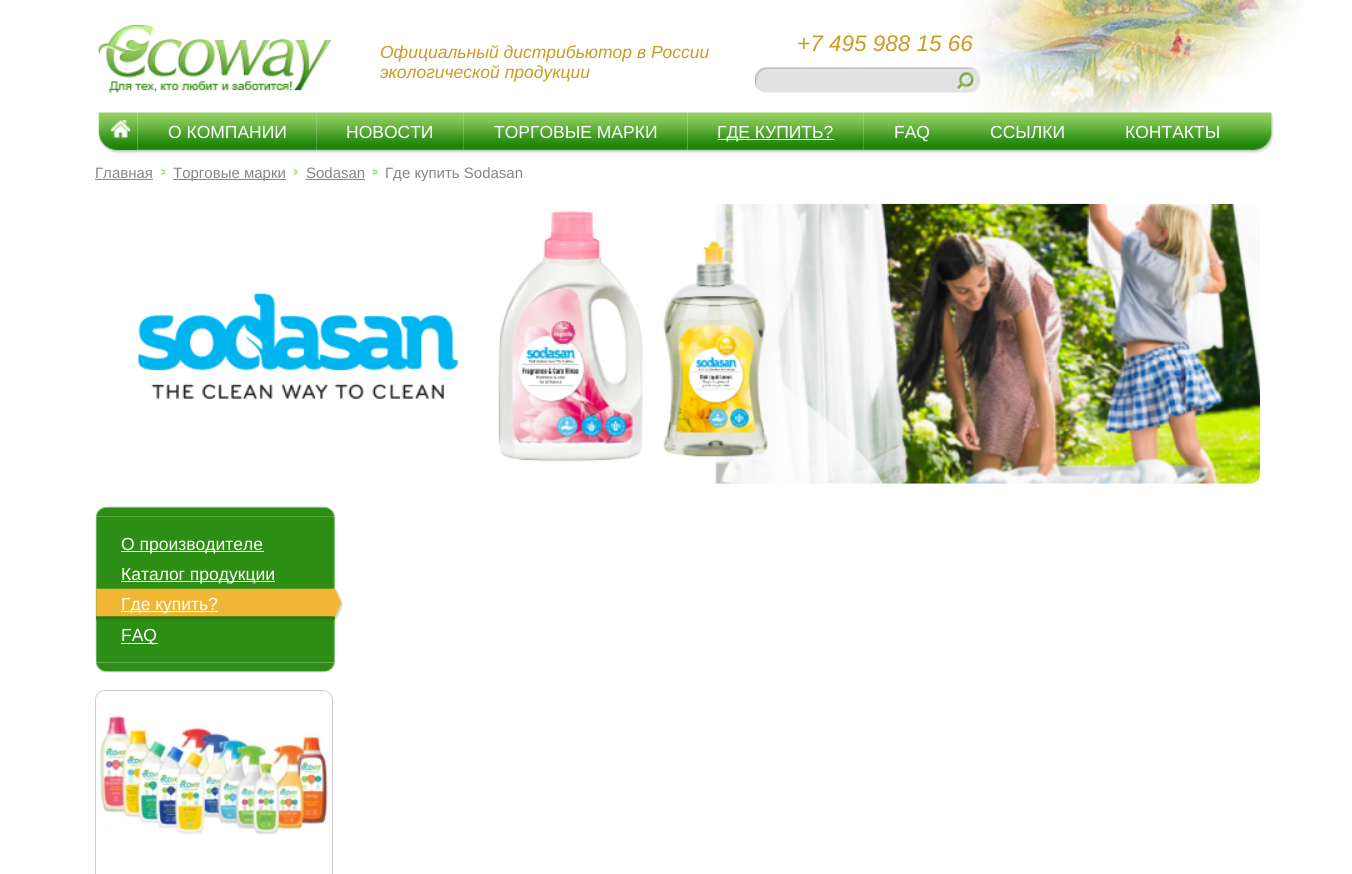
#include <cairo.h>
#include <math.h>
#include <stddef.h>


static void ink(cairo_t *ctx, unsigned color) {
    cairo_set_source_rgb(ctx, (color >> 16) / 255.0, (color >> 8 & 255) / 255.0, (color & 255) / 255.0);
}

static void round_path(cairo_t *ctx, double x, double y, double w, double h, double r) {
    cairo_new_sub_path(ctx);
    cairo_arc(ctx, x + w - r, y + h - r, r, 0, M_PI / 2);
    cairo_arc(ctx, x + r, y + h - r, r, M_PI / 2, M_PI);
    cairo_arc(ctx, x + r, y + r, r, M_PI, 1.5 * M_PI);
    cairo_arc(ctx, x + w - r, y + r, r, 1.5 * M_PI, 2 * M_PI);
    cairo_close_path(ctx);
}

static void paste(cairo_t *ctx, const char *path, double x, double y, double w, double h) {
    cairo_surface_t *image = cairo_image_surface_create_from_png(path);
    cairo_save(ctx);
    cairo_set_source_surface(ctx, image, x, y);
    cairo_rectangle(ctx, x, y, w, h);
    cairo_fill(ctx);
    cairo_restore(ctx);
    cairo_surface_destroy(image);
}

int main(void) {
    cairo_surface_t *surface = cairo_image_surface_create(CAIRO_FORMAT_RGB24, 1352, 874);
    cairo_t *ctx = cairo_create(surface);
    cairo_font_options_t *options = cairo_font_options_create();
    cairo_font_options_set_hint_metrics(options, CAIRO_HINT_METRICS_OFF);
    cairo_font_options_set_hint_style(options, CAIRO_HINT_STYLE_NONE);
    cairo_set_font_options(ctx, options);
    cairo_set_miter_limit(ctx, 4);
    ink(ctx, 0xFFFFFF);
    cairo_paint(ctx);
    paste(ctx, "media/1.png", 961, 0, 342, 113);
    paste(ctx, "media/2.png", 98, 25, 234, 68);
    cairo_select_font_face(ctx, "Liberation Sans", CAIRO_FONT_SLANT_ITALIC, CAIRO_FONT_WEIGHT_NORMAL);
    cairo_set_font_size(ctx, 17.5);
    ink(ctx, 0xCD9A20);
    cairo_move_to(ctx, 380, 58);
    cairo_show_text(ctx, "Официальный дистрибьютор в России");
    cairo_move_to(ctx, 380, 78);
    cairo_show_text(ctx, "экологической продукции");
    cairo_set_font_size(ctx, 22.5);
    cairo_move_to(ctx, 797, 51);
    cairo_show_text(ctx, "+7 495 988 15 66");
    paste(ctx, "media/3.png", 755, 67, 225, 26);
    paste(ctx, "media/4.png", 98, 112, 40, 42);
    paste(ctx, "media/5.png", 111, 120, 19, 18);
    paste(ctx, "media/6.png", 137, 112, 180, 42);
    cairo_select_font_face(ctx, "Liberation Sans", CAIRO_FONT_SLANT_NORMAL, CAIRO_FONT_WEIGHT_NORMAL);
    cairo_set_font_size(ctx, 17.5);
    ink(ctx, 0xFFFFFF);
    cairo_move_to(ctx, 168, 138);
    cairo_show_text(ctx, "О КОМПАНИИ");
    paste(ctx, "media/7.png", 316, 112, 148, 42);
    cairo_move_to(ctx, 346, 138);
    cairo_show_text(ctx, "НОВОСТИ");
    paste(ctx, "media/8.png", 463, 112, 225, 42);
    cairo_move_to(ctx, 494, 138);
    cairo_show_text(ctx, "ТОРГОВЫЕ МАРКИ");
    paste(ctx, "media/9.png", 687, 112, 177, 42);
    cairo_rectangle(ctx, 718, 139, 116, 1);
    cairo_fill(ctx);
    cairo_move_to(ctx, 717, 138);
    cairo_show_text(ctx, "ГДЕ КУПИТЬ?");
    paste(ctx, "media/10.png", 863, 112, 97, 42);
    cairo_move_to(ctx, 894, 138);
    cairo_show_text(ctx, "FAQ");
    paste(ctx, "media/11.png", 960, 112, 135, 42);
    cairo_move_to(ctx, 990, 138);
    cairo_show_text(ctx, "ССЫЛКИ");
    paste(ctx, "media/12.png", 1095, 112, 155, 42);
    cairo_move_to(ctx, 1125, 138);
    cairo_show_text(ctx, "КОНТАКТЫ");
    paste(ctx, "media/13.png", 1250, 112, 24, 42);
    cairo_set_font_size(ctx, 15);
    ink(ctx, 0x868686);
    cairo_move_to(ctx, 95, 178);
    cairo_show_text(ctx, "Главная");
    cairo_rectangle(ctx, 95, 179, 58, 1);
    cairo_fill(ctx);
    paste(ctx, "media/14.png", 161, 168, 4, 8);
    cairo_rectangle(ctx, 173, 179, 113, 1);
    cairo_fill(ctx);
    cairo_move_to(ctx, 173, 178);
    cairo_show_text(ctx, "Торговые марки");
    paste(ctx, "media/15.png", 293, 168, 5, 8);
    cairo_move_to(ctx, 306, 178);
    cairo_show_text(ctx, "Sodasan");
    cairo_rectangle(ctx, 306, 179, 59, 1);
    cairo_fill(ctx);
    paste(ctx, "media/16.png", 372, 168, 6, 8);
    cairo_move_to(ctx, 385, 178);
    cairo_show_text(ctx, "Где купить Sodasan");
    paste(ctx, "media/17.png", 137, 293, 322, 107);
    paste(ctx, "media/18.png", 498, 203, 762, 281);
    paste(ctx, "media/19.png", 95, 506, 240, 11);
    paste(ctx, "media/23.png", 95, 662, 240, 11);
    paste(ctx, "media/20.png", 95, 516, 240, 147);
    ink(ctx, 0xFFFFFF);
    cairo_rectangle(ctx, 121, 551, 143, 1);
    cairo_fill(ctx);
    cairo_set_font_size(ctx, 17.5);
    cairo_move_to(ctx, 121, 550);
    cairo_show_text(ctx, "О производителе");
    cairo_rectangle(ctx, 121, 581, 154, 1);
    cairo_fill(ctx);
    cairo_move_to(ctx, 121, 580);
    cairo_show_text(ctx, "Каталог продукции");
    paste(ctx, "media/21.png", 96, 588, 239, 32);
    cairo_rectangle(ctx, 121, 611, 97, 1);
    cairo_fill(ctx);
    cairo_move_to(ctx, 121, 610);
    cairo_show_text(ctx, "Где купить?");
    paste(ctx, "media/22.png", 332, 588, 11, 32);
    cairo_rectangle(ctx, 121, 643, 37, 1);
    cairo_fill(ctx);
    cairo_move_to(ctx, 121, 641);
    cairo_show_text(ctx, "FAQ");
    round_path(ctx, 95.5, 690.5, 237, 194, 9.5);
    ink(ctx, 0xCFCFCF);
    cairo_set_line_width(ctx, 1);
    cairo_stroke(ctx);
    paste(ctx, "media/24.png", 99, 714, 232, 120);
    cairo_surface_write_to_png(surface, "image.png");
    cairo_font_options_destroy(options);
    cairo_destroy(ctx);
    cairo_surface_destroy(surface);
    return 0;
}
